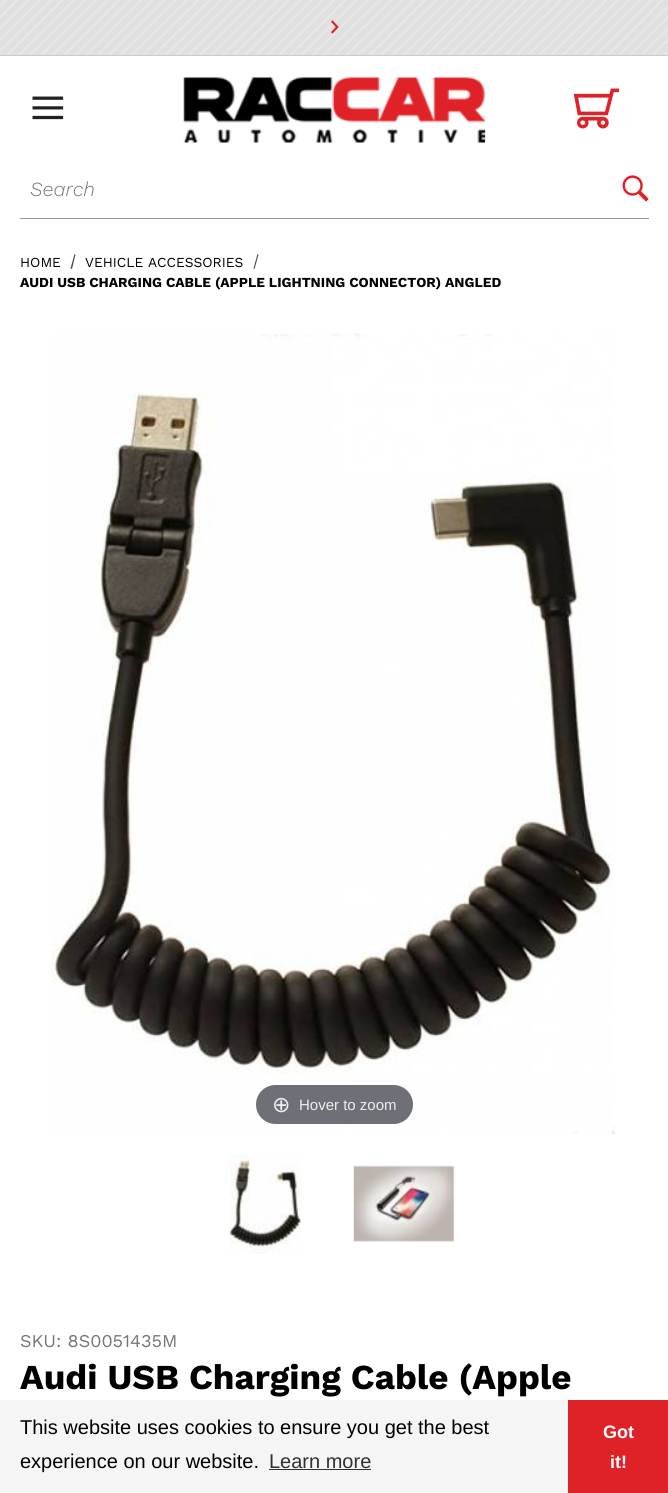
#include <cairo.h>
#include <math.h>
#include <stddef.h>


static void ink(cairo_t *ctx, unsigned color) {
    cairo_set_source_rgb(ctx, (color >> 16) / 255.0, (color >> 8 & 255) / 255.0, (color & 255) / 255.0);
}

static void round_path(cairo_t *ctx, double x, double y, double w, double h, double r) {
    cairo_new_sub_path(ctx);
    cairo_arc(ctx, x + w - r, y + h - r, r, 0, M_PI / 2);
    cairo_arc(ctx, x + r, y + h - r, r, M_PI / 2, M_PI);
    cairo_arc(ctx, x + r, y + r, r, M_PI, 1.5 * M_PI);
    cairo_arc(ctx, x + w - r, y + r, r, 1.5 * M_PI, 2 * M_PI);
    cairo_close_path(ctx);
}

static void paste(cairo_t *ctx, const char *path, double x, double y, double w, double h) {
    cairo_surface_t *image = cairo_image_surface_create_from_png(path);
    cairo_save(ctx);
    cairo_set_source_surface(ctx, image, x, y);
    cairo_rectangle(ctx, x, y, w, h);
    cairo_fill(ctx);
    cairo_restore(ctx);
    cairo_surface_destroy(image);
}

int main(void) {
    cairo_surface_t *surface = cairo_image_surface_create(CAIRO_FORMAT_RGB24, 668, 1493);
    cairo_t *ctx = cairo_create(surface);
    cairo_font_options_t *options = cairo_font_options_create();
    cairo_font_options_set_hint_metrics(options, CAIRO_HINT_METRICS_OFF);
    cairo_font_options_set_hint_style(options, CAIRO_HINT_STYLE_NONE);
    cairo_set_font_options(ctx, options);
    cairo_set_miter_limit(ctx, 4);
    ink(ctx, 0xFFFFFF);
    cairo_paint(ctx);
    ink(ctx, 0xCCCCCC);
    cairo_rectangle(ctx, 0, 55, 668, 1);
    cairo_fill(ctx);
    paste(ctx, "media/1.png", 0, 0, 668, 55);
    cairo_select_font_face(ctx, "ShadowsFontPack", CAIRO_FONT_SLANT_NORMAL, CAIRO_FONT_WEIGHT_NORMAL);
    cairo_set_font_size(ctx, 13.75);
    ink(ctx, 0xDF2228);
    cairo_move_to(ctx, 328, 33);
    cairo_show_text(ctx, "3");
    paste(ctx, "media/2.png", 32, 96, 32, 24);
    paste(ctx, "media/3.png", 183, 77, 303, 66);
    paste(ctx, "media/4.png", 573, 88, 47, 41);
    ink(ctx, 0x999999);
    cairo_rectangle(ctx, 20, 218, 629, 1);
    cairo_fill(ctx);
    cairo_select_font_face(ctx, "Work Sans Light", CAIRO_FONT_SLANT_ITALIC, CAIRO_FONT_WEIGHT_NORMAL);
    cairo_set_font_size(ctx, 20);
    ink(ctx, 0x767676);
    cairo_move_to(ctx, 30, 196);
    cairo_show_text(ctx, "Search");
    paste(ctx, "media/5.png", 622, 175, 27, 27);
    cairo_select_font_face(ctx, "Work Sans", CAIRO_FONT_SLANT_NORMAL, CAIRO_FONT_WEIGHT_NORMAL);
    cairo_set_font_size(ctx, 13.75);
    ink(ctx, 0x000000);
    cairo_move_to(ctx, 20, 267);
    cairo_show_text(ctx, "HOME");
    ink(ctx, 0x4A4A4A);
    cairo_new_path(ctx);
    cairo_move_to(ctx, 74.5, 254);
    cairo_line_to(ctx, 75.5, 254.5);
    cairo_line_to(ctx, 72, 269);
    cairo_line_to(ctx, 70.5, 268.5);
    cairo_close_path(ctx);
    cairo_fill(ctx);
    ink(ctx, 0x000000);
    cairo_move_to(ctx, 85, 267);
    cairo_show_text(ctx, "VEHICLE ACCESSORIES");
    ink(ctx, 0x4A4A4A);
    cairo_new_path(ctx);
    cairo_move_to(ctx, 257.5, 254);
    cairo_line_to(ctx, 258.5, 254.5);
    cairo_line_to(ctx, 254.5, 269);
    cairo_line_to(ctx, 253.5, 268.5);
    cairo_close_path(ctx);
    cairo_fill(ctx);
    cairo_select_font_face(ctx, "Work Sans", CAIRO_FONT_SLANT_NORMAL, CAIRO_FONT_WEIGHT_BOLD);
    ink(ctx, 0x000000);
    cairo_move_to(ctx, 20, 287);
    cairo_show_text(ctx, "AUDI USB CHARGING CABLE (APPLE LIGHTNING CONNECTOR) ANGLED");
    paste(ctx, "media/6.png", 51, 334, 565, 800);
    ink(ctx, 0x6F7077);
    round_path(ctx, 256, 1085, 157, 39, 19.5);
    cairo_fill(ctx);
    cairo_select_font_face(ctx, "DejaVu Sans", CAIRO_FONT_SLANT_NORMAL, CAIRO_FONT_WEIGHT_NORMAL);
    cairo_set_font_size(ctx, 22);
    ink(ctx, 0xEEEEEE);
    cairo_move_to(ctx, 272, 1112);
    cairo_show_text(ctx, "⊕");
    cairo_select_font_face(ctx, "Liberation Sans", CAIRO_FONT_SLANT_NORMAL, CAIRO_FONT_WEIGHT_NORMAL);
    cairo_set_font_size(ctx, 15);
    cairo_move_to(ctx, 299, 1110);
    cairo_show_text(ctx, "Hover to zoom");
    paste(ctx, "media/7.png", 229, 1154, 73, 100);
    paste(ctx, "media/8.png", 353, 1165, 101, 77);
    cairo_select_font_face(ctx, "Work Sans", CAIRO_FONT_SLANT_NORMAL, CAIRO_FONT_WEIGHT_NORMAL);
    cairo_set_font_size(ctx, 18);
    ink(ctx, 0x767676);
    cairo_move_to(ctx, 20, 1347);
    cairo_show_text(ctx, "SKU: 8S0051435M");
    cairo_select_font_face(ctx, "Work Sans", CAIRO_FONT_SLANT_NORMAL, CAIRO_FONT_WEIGHT_BOLD);
    cairo_set_font_size(ctx, 35);
    ink(ctx, 0x000000);
    cairo_move_to(ctx, 20, 1389);
    cairo_show_text(ctx, "Audi USB Charging Cable (Apple");
    ink(ctx, 0xF5F5F5);
    cairo_rectangle(ctx, 0, 1400, 568, 93);
    cairo_fill(ctx);
    cairo_select_font_face(ctx, "Liberation Sans", CAIRO_FONT_SLANT_NORMAL, CAIRO_FONT_WEIGHT_NORMAL);
    cairo_set_font_size(ctx, 20);
    ink(ctx, 0x000000);
    cairo_move_to(ctx, 20, 1434);
    cairo_show_text(ctx, "This website uses cookies to ensure you get the best");
    cairo_move_to(ctx, 20, 1468);
    cairo_show_text(ctx, "experience on our website.");
    ink(ctx, 0x313131);
    cairo_move_to(ctx, 269, 1468);
    cairo_show_text(ctx, "Learn more");
    cairo_rectangle(ctx, 269, 1469, 102, 1);
    cairo_fill(ctx);
    ink(ctx, 0xDF2228);
    cairo_rectangle(ctx, 568, 1400, 100, 93);
    cairo_fill(ctx);
    cairo_select_font_face(ctx, "Liberation Sans", CAIRO_FONT_SLANT_NORMAL, CAIRO_FONT_WEIGHT_BOLD);
    cairo_set_font_size(ctx, 18);
    ink(ctx, 0xFFFFFF);
    cairo_move_to(ctx, 603, 1438);
    cairo_show_text(ctx, "Got");
    cairo_move_to(ctx, 610, 1468);
    cairo_show_text(ctx, "it!");
    cairo_surface_write_to_png(surface, "image.png");
    cairo_font_options_destroy(options);
    cairo_destroy(ctx);
    cairo_surface_destroy(surface);
    return 0;
}
